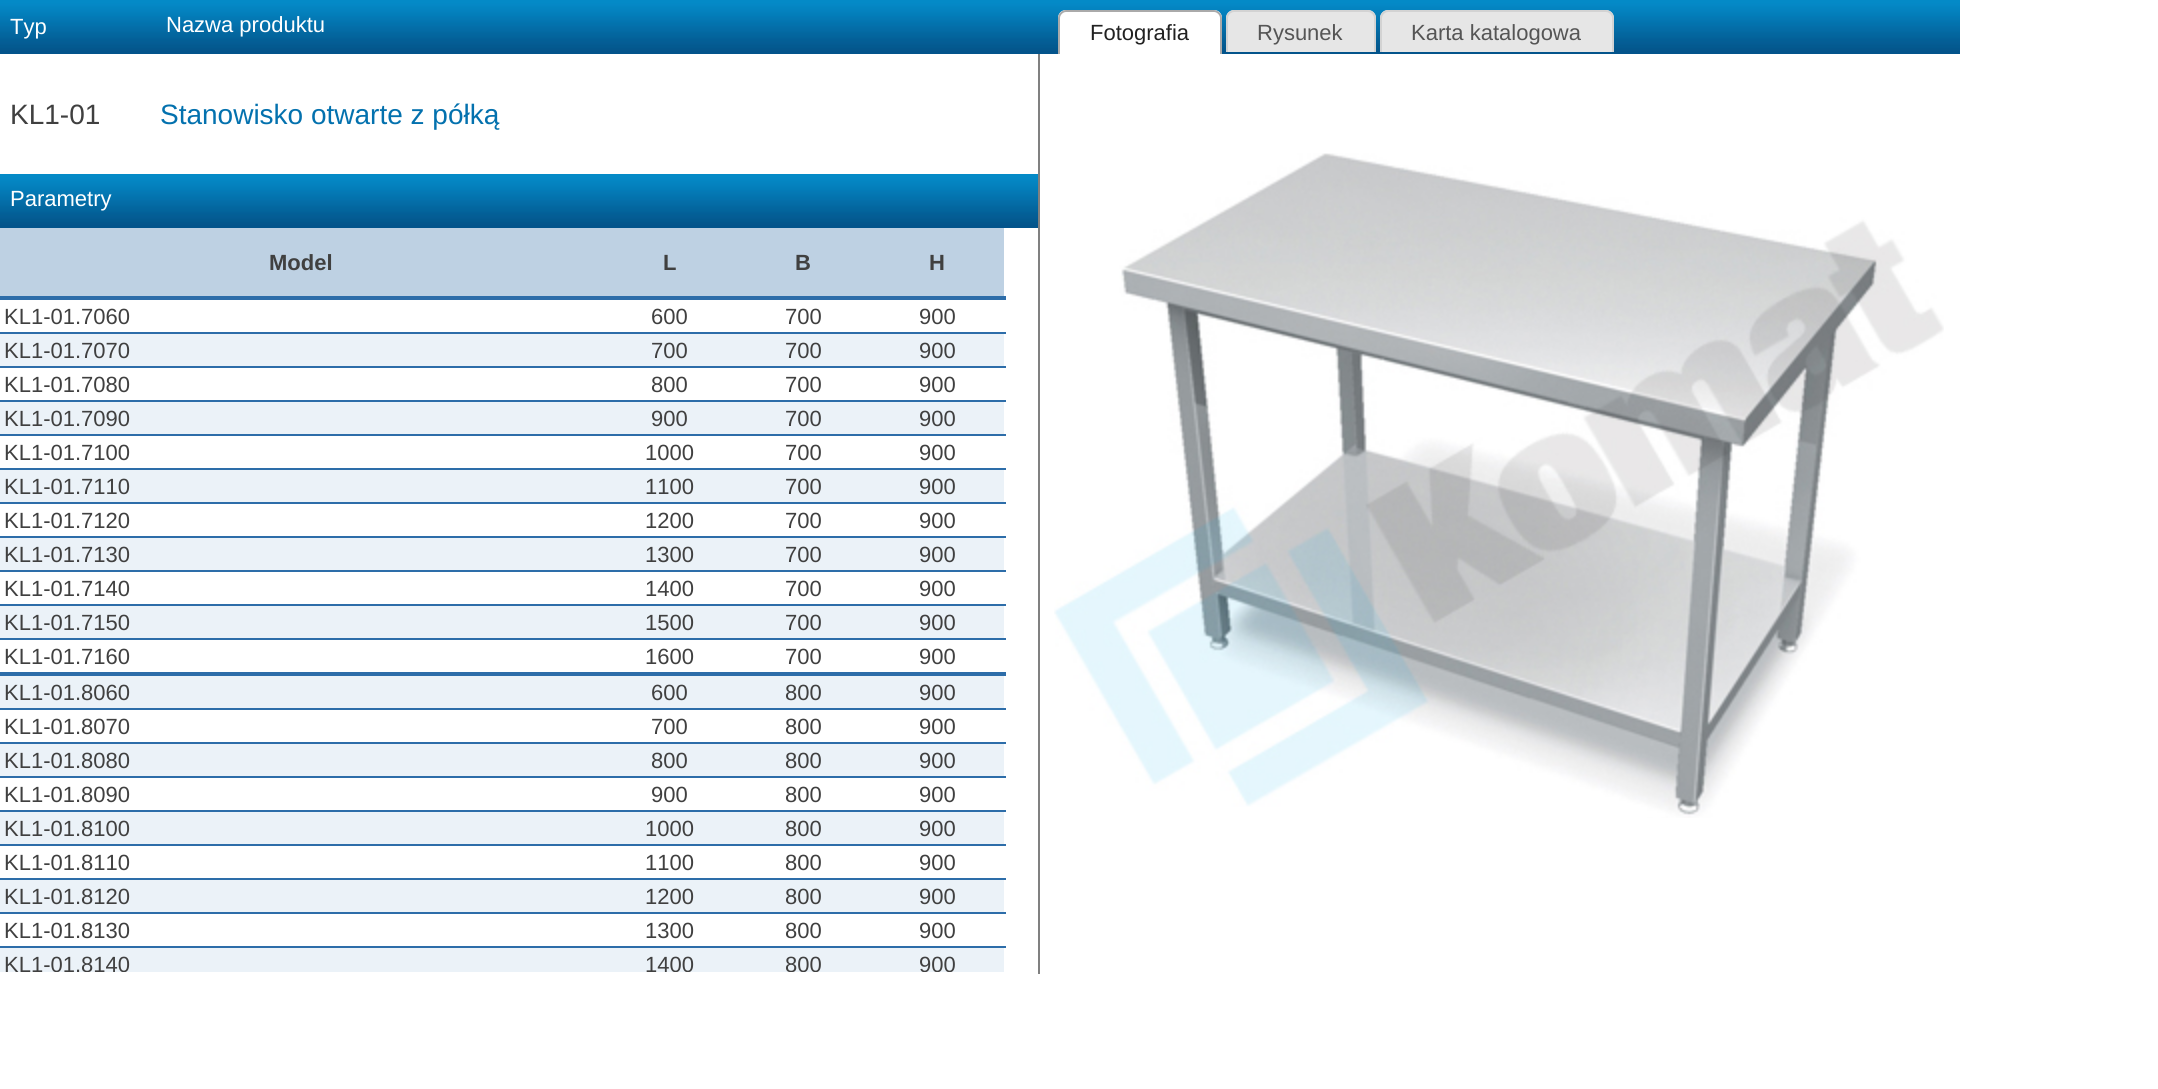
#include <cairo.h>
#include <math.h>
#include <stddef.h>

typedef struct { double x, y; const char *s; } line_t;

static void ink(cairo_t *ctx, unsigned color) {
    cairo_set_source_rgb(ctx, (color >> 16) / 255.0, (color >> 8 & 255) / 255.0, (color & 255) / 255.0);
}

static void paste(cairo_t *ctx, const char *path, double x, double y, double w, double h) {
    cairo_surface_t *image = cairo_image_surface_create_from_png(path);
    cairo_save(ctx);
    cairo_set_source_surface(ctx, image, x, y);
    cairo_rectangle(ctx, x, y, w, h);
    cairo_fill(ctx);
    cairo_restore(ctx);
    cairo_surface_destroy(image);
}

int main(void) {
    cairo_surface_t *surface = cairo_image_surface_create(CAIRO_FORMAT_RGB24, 2158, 1089);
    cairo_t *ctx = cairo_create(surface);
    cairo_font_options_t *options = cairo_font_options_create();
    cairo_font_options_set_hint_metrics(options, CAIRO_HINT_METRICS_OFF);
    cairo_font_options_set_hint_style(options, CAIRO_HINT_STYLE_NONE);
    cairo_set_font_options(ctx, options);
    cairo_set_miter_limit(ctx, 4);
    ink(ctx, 0xFFFFFF);
    cairo_paint(ctx);
    paste(ctx, "media/1.png", 0, 0, 1038, 54);
    cairo_select_font_face(ctx, "Liberation Sans", CAIRO_FONT_SLANT_NORMAL, CAIRO_FONT_WEIGHT_NORMAL);
    cairo_set_font_size(ctx, 22);
    ink(ctx, 0xFFFFFF);
    cairo_move_to(ctx, 10, 34);
    cairo_show_text(ctx, "Typ");
    cairo_move_to(ctx, 166, 32);
    cairo_show_text(ctx, "Nazwa produktu");
    cairo_set_font_size(ctx, 28);
    ink(ctx, 0x404040);
    cairo_move_to(ctx, 10, 124);
    cairo_show_text(ctx, "KL1-01");
    ink(ctx, 0x0371AE);
    cairo_move_to(ctx, 160, 124);
    cairo_show_text(ctx, "Stanowisko otwarte z półką");
    paste(ctx, "media/1.png", 0, 174, 1038, 54);
    cairo_set_font_size(ctx, 22);
    ink(ctx, 0xFFFFFF);
    cairo_move_to(ctx, 10, 206);
    cairo_show_text(ctx, "Parametry");
    ink(ctx, 0xBED1E3);
    cairo_rectangle(ctx, 0, 228, 1004, 68);
    cairo_fill(ctx);
    ink(ctx, 0x2D6DA9);
    cairo_rectangle(ctx, 0, 296, 1006, 4);
    cairo_fill(ctx);
    cairo_select_font_face(ctx, "Liberation Sans", CAIRO_FONT_SLANT_NORMAL, CAIRO_FONT_WEIGHT_BOLD);
    ink(ctx, 0x404040);
    {
        static const line_t items[] = {
            {269, 270, "Model"},
            {663, 270, "L"},
            {795, 270, "B"},
            {929, 270, "H"},
        };
        for (size_t i = 0; i < sizeof items / sizeof *items; i++) {
            cairo_move_to(ctx, items[i].x, items[i].y);
            cairo_show_text(ctx, items[i].s);
        }
    }
    cairo_select_font_face(ctx, "Liberation Sans", CAIRO_FONT_SLANT_NORMAL, CAIRO_FONT_WEIGHT_NORMAL);
    {
        static const line_t items[] = {
            {4, 324, "KL1-01.7060"},
            {651, 324, "600"},
            {785, 324, "700"},
        };
        for (size_t i = 0; i < sizeof items / sizeof *items; i++) {
            cairo_move_to(ctx, items[i].x, items[i].y);
            cairo_show_text(ctx, items[i].s);
        }
    }
    ink(ctx, 0x2D6DA9);
    cairo_rectangle(ctx, 0, 332, 1006, 2);
    cairo_fill(ctx);
    ink(ctx, 0x404040);
    cairo_move_to(ctx, 919, 324);
    cairo_show_text(ctx, "900");
    ink(ctx, 0xEBF2F8);
    cairo_rectangle(ctx, 0, 334, 1004, 32);
    cairo_fill(ctx);
    ink(ctx, 0x404040);
    {
        static const line_t items[] = {
            {4, 358, "KL1-01.7070"},
            {651, 358, "700"},
            {785, 358, "700"},
        };
        for (size_t i = 0; i < sizeof items / sizeof *items; i++) {
            cairo_move_to(ctx, items[i].x, items[i].y);
            cairo_show_text(ctx, items[i].s);
        }
    }
    ink(ctx, 0x2D6DA9);
    cairo_rectangle(ctx, 0, 366, 1006, 2);
    cairo_fill(ctx);
    ink(ctx, 0x404040);
    {
        static const line_t items[] = {
            {919, 358, "900"},
            {4, 392, "KL1-01.7080"},
            {651, 392, "800"},
            {785, 392, "700"},
        };
        for (size_t i = 0; i < sizeof items / sizeof *items; i++) {
            cairo_move_to(ctx, items[i].x, items[i].y);
            cairo_show_text(ctx, items[i].s);
        }
    }
    ink(ctx, 0x2D6DA9);
    cairo_rectangle(ctx, 0, 400, 1006, 2);
    cairo_fill(ctx);
    ink(ctx, 0x404040);
    cairo_move_to(ctx, 919, 392);
    cairo_show_text(ctx, "900");
    ink(ctx, 0xEBF2F8);
    cairo_rectangle(ctx, 0, 402, 1004, 32);
    cairo_fill(ctx);
    ink(ctx, 0x404040);
    {
        static const line_t items[] = {
            {4, 426, "KL1-01.7090"},
            {651, 426, "900"},
            {785, 426, "700"},
        };
        for (size_t i = 0; i < sizeof items / sizeof *items; i++) {
            cairo_move_to(ctx, items[i].x, items[i].y);
            cairo_show_text(ctx, items[i].s);
        }
    }
    ink(ctx, 0x2D6DA9);
    cairo_rectangle(ctx, 0, 434, 1006, 2);
    cairo_fill(ctx);
    ink(ctx, 0x404040);
    {
        static const line_t items[] = {
            {919, 426, "900"},
            {4, 460, "KL1-01.7100"},
            {645, 460, "1000"},
            {785, 460, "700"},
        };
        for (size_t i = 0; i < sizeof items / sizeof *items; i++) {
            cairo_move_to(ctx, items[i].x, items[i].y);
            cairo_show_text(ctx, items[i].s);
        }
    }
    ink(ctx, 0x2D6DA9);
    cairo_rectangle(ctx, 0, 468, 1006, 2);
    cairo_fill(ctx);
    ink(ctx, 0x404040);
    cairo_move_to(ctx, 919, 460);
    cairo_show_text(ctx, "900");
    ink(ctx, 0xEBF2F8);
    cairo_rectangle(ctx, 0, 470, 1004, 32);
    cairo_fill(ctx);
    ink(ctx, 0x404040);
    {
        static const line_t items[] = {
            {4, 494, "KL1-01.7110"},
            {645, 494, "1100"},
            {785, 494, "700"},
        };
        for (size_t i = 0; i < sizeof items / sizeof *items; i++) {
            cairo_move_to(ctx, items[i].x, items[i].y);
            cairo_show_text(ctx, items[i].s);
        }
    }
    ink(ctx, 0x2D6DA9);
    cairo_rectangle(ctx, 0, 502, 1006, 2);
    cairo_fill(ctx);
    ink(ctx, 0x404040);
    {
        static const line_t items[] = {
            {919, 494, "900"},
            {4, 528, "KL1-01.7120"},
            {645, 528, "1200"},
            {785, 528, "700"},
        };
        for (size_t i = 0; i < sizeof items / sizeof *items; i++) {
            cairo_move_to(ctx, items[i].x, items[i].y);
            cairo_show_text(ctx, items[i].s);
        }
    }
    ink(ctx, 0x2D6DA9);
    cairo_rectangle(ctx, 0, 536, 1006, 2);
    cairo_fill(ctx);
    ink(ctx, 0x404040);
    cairo_move_to(ctx, 919, 528);
    cairo_show_text(ctx, "900");
    ink(ctx, 0xEBF2F8);
    cairo_rectangle(ctx, 0, 538, 1004, 32);
    cairo_fill(ctx);
    ink(ctx, 0x404040);
    {
        static const line_t items[] = {
            {4, 562, "KL1-01.7130"},
            {645, 562, "1300"},
            {785, 562, "700"},
        };
        for (size_t i = 0; i < sizeof items / sizeof *items; i++) {
            cairo_move_to(ctx, items[i].x, items[i].y);
            cairo_show_text(ctx, items[i].s);
        }
    }
    ink(ctx, 0x2D6DA9);
    cairo_rectangle(ctx, 0, 570, 1006, 2);
    cairo_fill(ctx);
    ink(ctx, 0x404040);
    {
        static const line_t items[] = {
            {919, 562, "900"},
            {4, 596, "KL1-01.7140"},
            {645, 596, "1400"},
            {785, 596, "700"},
        };
        for (size_t i = 0; i < sizeof items / sizeof *items; i++) {
            cairo_move_to(ctx, items[i].x, items[i].y);
            cairo_show_text(ctx, items[i].s);
        }
    }
    ink(ctx, 0x2D6DA9);
    cairo_rectangle(ctx, 0, 604, 1006, 2);
    cairo_fill(ctx);
    ink(ctx, 0x404040);
    cairo_move_to(ctx, 919, 596);
    cairo_show_text(ctx, "900");
    ink(ctx, 0xEBF2F8);
    cairo_rectangle(ctx, 0, 606, 1004, 32);
    cairo_fill(ctx);
    ink(ctx, 0x404040);
    {
        static const line_t items[] = {
            {4, 630, "KL1-01.7150"},
            {645, 630, "1500"},
            {785, 630, "700"},
        };
        for (size_t i = 0; i < sizeof items / sizeof *items; i++) {
            cairo_move_to(ctx, items[i].x, items[i].y);
            cairo_show_text(ctx, items[i].s);
        }
    }
    ink(ctx, 0x2D6DA9);
    cairo_rectangle(ctx, 0, 638, 1006, 2);
    cairo_fill(ctx);
    ink(ctx, 0x404040);
    cairo_move_to(ctx, 919, 630);
    cairo_show_text(ctx, "900");
    ink(ctx, 0x2D6DA9);
    cairo_rectangle(ctx, 0, 672, 1006, 4);
    cairo_fill(ctx);
    ink(ctx, 0x404040);
    {
        static const line_t items[] = {
            {4, 664, "KL1-01.7160"},
            {645, 664, "1600"},
            {785, 664, "700"},
            {919, 664, "900"},
        };
        for (size_t i = 0; i < sizeof items / sizeof *items; i++) {
            cairo_move_to(ctx, items[i].x, items[i].y);
            cairo_show_text(ctx, items[i].s);
        }
    }
    ink(ctx, 0xEBF2F8);
    cairo_rectangle(ctx, 0, 676, 1004, 32);
    cairo_fill(ctx);
    ink(ctx, 0x404040);
    {
        static const line_t items[] = {
            {4, 700, "KL1-01.8060"},
            {651, 700, "600"},
            {785, 700, "800"},
        };
        for (size_t i = 0; i < sizeof items / sizeof *items; i++) {
            cairo_move_to(ctx, items[i].x, items[i].y);
            cairo_show_text(ctx, items[i].s);
        }
    }
    ink(ctx, 0x2D6DA9);
    cairo_rectangle(ctx, 0, 708, 1006, 2);
    cairo_fill(ctx);
    ink(ctx, 0x404040);
    {
        static const line_t items[] = {
            {919, 700, "900"},
            {4, 734, "KL1-01.8070"},
            {651, 734, "700"},
            {785, 734, "800"},
        };
        for (size_t i = 0; i < sizeof items / sizeof *items; i++) {
            cairo_move_to(ctx, items[i].x, items[i].y);
            cairo_show_text(ctx, items[i].s);
        }
    }
    ink(ctx, 0x2D6DA9);
    cairo_rectangle(ctx, 0, 742, 1006, 2);
    cairo_fill(ctx);
    ink(ctx, 0x404040);
    cairo_move_to(ctx, 919, 734);
    cairo_show_text(ctx, "900");
    ink(ctx, 0xEBF2F8);
    cairo_rectangle(ctx, 0, 744, 1004, 32);
    cairo_fill(ctx);
    ink(ctx, 0x404040);
    {
        static const line_t items[] = {
            {4, 768, "KL1-01.8080"},
            {651, 768, "800"},
            {785, 768, "800"},
        };
        for (size_t i = 0; i < sizeof items / sizeof *items; i++) {
            cairo_move_to(ctx, items[i].x, items[i].y);
            cairo_show_text(ctx, items[i].s);
        }
    }
    ink(ctx, 0x2D6DA9);
    cairo_rectangle(ctx, 0, 776, 1006, 2);
    cairo_fill(ctx);
    ink(ctx, 0x404040);
    {
        static const line_t items[] = {
            {919, 768, "900"},
            {4, 802, "KL1-01.8090"},
            {651, 802, "900"},
            {785, 802, "800"},
        };
        for (size_t i = 0; i < sizeof items / sizeof *items; i++) {
            cairo_move_to(ctx, items[i].x, items[i].y);
            cairo_show_text(ctx, items[i].s);
        }
    }
    ink(ctx, 0x2D6DA9);
    cairo_rectangle(ctx, 0, 810, 1006, 2);
    cairo_fill(ctx);
    ink(ctx, 0x404040);
    cairo_move_to(ctx, 919, 802);
    cairo_show_text(ctx, "900");
    ink(ctx, 0xEBF2F8);
    cairo_rectangle(ctx, 0, 812, 1004, 32);
    cairo_fill(ctx);
    ink(ctx, 0x404040);
    {
        static const line_t items[] = {
            {4, 836, "KL1-01.8100"},
            {645, 836, "1000"},
            {785, 836, "800"},
        };
        for (size_t i = 0; i < sizeof items / sizeof *items; i++) {
            cairo_move_to(ctx, items[i].x, items[i].y);
            cairo_show_text(ctx, items[i].s);
        }
    }
    ink(ctx, 0x2D6DA9);
    cairo_rectangle(ctx, 0, 844, 1006, 2);
    cairo_fill(ctx);
    ink(ctx, 0x404040);
    {
        static const line_t items[] = {
            {919, 836, "900"},
            {4, 870, "KL1-01.8110"},
            {645, 870, "1100"},
            {785, 870, "800"},
        };
        for (size_t i = 0; i < sizeof items / sizeof *items; i++) {
            cairo_move_to(ctx, items[i].x, items[i].y);
            cairo_show_text(ctx, items[i].s);
        }
    }
    ink(ctx, 0x2D6DA9);
    cairo_rectangle(ctx, 0, 878, 1006, 2);
    cairo_fill(ctx);
    ink(ctx, 0x404040);
    cairo_move_to(ctx, 919, 870);
    cairo_show_text(ctx, "900");
    ink(ctx, 0xEBF2F8);
    cairo_rectangle(ctx, 0, 880, 1004, 32);
    cairo_fill(ctx);
    ink(ctx, 0x404040);
    {
        static const line_t items[] = {
            {4, 904, "KL1-01.8120"},
            {645, 904, "1200"},
            {785, 904, "800"},
        };
        for (size_t i = 0; i < sizeof items / sizeof *items; i++) {
            cairo_move_to(ctx, items[i].x, items[i].y);
            cairo_show_text(ctx, items[i].s);
        }
    }
    ink(ctx, 0x2D6DA9);
    cairo_rectangle(ctx, 0, 912, 1006, 2);
    cairo_fill(ctx);
    ink(ctx, 0x404040);
    {
        static const line_t items[] = {
            {919, 904, "900"},
            {4, 938, "KL1-01.8130"},
            {645, 938, "1300"},
            {785, 938, "800"},
        };
        for (size_t i = 0; i < sizeof items / sizeof *items; i++) {
            cairo_move_to(ctx, items[i].x, items[i].y);
            cairo_show_text(ctx, items[i].s);
        }
    }
    ink(ctx, 0x2D6DA9);
    cairo_rectangle(ctx, 0, 946, 1006, 2);
    cairo_fill(ctx);
    ink(ctx, 0x404040);
    cairo_move_to(ctx, 919, 938);
    cairo_show_text(ctx, "900");
    ink(ctx, 0xEBF2F8);
    cairo_rectangle(ctx, 0, 948, 1004, 24);
    cairo_fill(ctx);
    cairo_save(ctx);
    cairo_rectangle(ctx, 0, 228, 1038, 744);
    cairo_clip(ctx);
    ink(ctx, 0x404040);
    {
        static const line_t items[] = {
            {4, 972, "KL1-01.8140"},
            {645, 972, "1400"},
            {785, 972, "800"},
            {919, 972, "900"},
        };
        for (size_t i = 0; i < sizeof items / sizeof *items; i++) {
            cairo_move_to(ctx, items[i].x, items[i].y);
            cairo_show_text(ctx, items[i].s);
        }
    }
    cairo_restore(ctx);
    paste(ctx, "media/2.png", 1038, 0, 922, 54);
    ink(ctx, 0xFFFFFF);
    cairo_new_path(ctx);
    cairo_move_to(ctx, 1066, 10);
    cairo_line_to(ctx, 1214, 10);
    cairo_curve_to(ctx, 1218.5, 10, 1222, 13.5, 1222, 18);
    cairo_line_to(ctx, 1222, 54);
    cairo_line_to(ctx, 1058, 54);
    cairo_line_to(ctx, 1058, 18);
    cairo_curve_to(ctx, 1058, 13.5, 1061.5, 10, 1066, 10);
    cairo_close_path(ctx);
    cairo_fill(ctx);
    ink(ctx, 0xAAAAAA);
    cairo_set_fill_rule(ctx, CAIRO_FILL_RULE_EVEN_ODD);
    cairo_new_path(ctx);
    cairo_move_to(ctx, 1066, 10);
    cairo_line_to(ctx, 1214, 10);
    cairo_curve_to(ctx, 1218, 10, 1222, 14, 1222, 18);
    cairo_line_to(ctx, 1222, 54);
    cairo_line_to(ctx, 1058, 54);
    cairo_line_to(ctx, 1058, 18);
    cairo_curve_to(ctx, 1058, 14, 1062, 10, 1066, 10);
    cairo_close_path(ctx);
    cairo_move_to(ctx, 1066, 12);
    cairo_line_to(ctx, 1214, 12);
    cairo_curve_to(ctx, 1217, 12, 1220, 15, 1220, 18);
    cairo_line_to(ctx, 1220, 54);
    cairo_line_to(ctx, 1060, 54);
    cairo_line_to(ctx, 1060, 18);
    cairo_curve_to(ctx, 1060, 15, 1063, 12, 1066, 12);
    cairo_close_path(ctx);
    cairo_fill(ctx);
    ink(ctx, 0x212121);
    cairo_move_to(ctx, 1090, 40);
    cairo_show_text(ctx, "Fotografia");
    ink(ctx, 0xE6E6E6);
    cairo_new_path(ctx);
    cairo_move_to(ctx, 1234, 10);
    cairo_line_to(ctx, 1368, 10);
    cairo_curve_to(ctx, 1372.5, 10, 1376, 13.5, 1376, 18);
    cairo_line_to(ctx, 1376, 52);
    cairo_line_to(ctx, 1226, 52);
    cairo_line_to(ctx, 1226, 18);
    cairo_curve_to(ctx, 1226, 13.5, 1229.5, 10, 1234, 10);
    cairo_close_path(ctx);
    cairo_fill(ctx);
    ink(ctx, 0xD3D3D3);
    cairo_new_path(ctx);
    cairo_move_to(ctx, 1234, 10);
    cairo_line_to(ctx, 1368, 10);
    cairo_curve_to(ctx, 1372, 10, 1376, 14, 1376, 18);
    cairo_line_to(ctx, 1376, 52);
    cairo_line_to(ctx, 1226, 52);
    cairo_line_to(ctx, 1226, 18);
    cairo_curve_to(ctx, 1226, 14, 1230, 10, 1234, 10);
    cairo_close_path(ctx);
    cairo_move_to(ctx, 1234, 12);
    cairo_line_to(ctx, 1368, 12);
    cairo_curve_to(ctx, 1371, 12, 1374, 15, 1374, 18);
    cairo_line_to(ctx, 1374, 52);
    cairo_line_to(ctx, 1228, 52);
    cairo_line_to(ctx, 1228, 18);
    cairo_curve_to(ctx, 1228, 15, 1231, 12, 1234, 12);
    cairo_close_path(ctx);
    cairo_fill(ctx);
    ink(ctx, 0x555555);
    cairo_move_to(ctx, 1257, 40);
    cairo_show_text(ctx, "Rysunek");
    ink(ctx, 0xE6E6E6);
    cairo_new_path(ctx);
    cairo_move_to(ctx, 1388, 10);
    cairo_line_to(ctx, 1606, 10);
    cairo_curve_to(ctx, 1610.5, 10, 1614, 13.5, 1614, 18);
    cairo_line_to(ctx, 1614, 52);
    cairo_line_to(ctx, 1380, 52);
    cairo_line_to(ctx, 1380, 18);
    cairo_curve_to(ctx, 1380, 13.5, 1383.5, 10, 1388, 10);
    cairo_close_path(ctx);
    cairo_fill(ctx);
    ink(ctx, 0xD3D3D3);
    cairo_new_path(ctx);
    cairo_move_to(ctx, 1388, 10);
    cairo_line_to(ctx, 1606, 10);
    cairo_curve_to(ctx, 1610, 10, 1614, 14, 1614, 18);
    cairo_line_to(ctx, 1614, 52);
    cairo_line_to(ctx, 1380, 52);
    cairo_line_to(ctx, 1380, 18);
    cairo_curve_to(ctx, 1380, 14, 1384, 10, 1388, 10);
    cairo_close_path(ctx);
    cairo_move_to(ctx, 1388, 12);
    cairo_line_to(ctx, 1606, 12);
    cairo_curve_to(ctx, 1609, 12, 1612, 15, 1612, 18);
    cairo_line_to(ctx, 1612, 52);
    cairo_line_to(ctx, 1382, 52);
    cairo_line_to(ctx, 1382, 18);
    cairo_curve_to(ctx, 1382, 15, 1385, 12, 1388, 12);
    cairo_close_path(ctx);
    cairo_fill(ctx);
    ink(ctx, 0x555555);
    cairo_move_to(ctx, 1411, 40);
    cairo_show_text(ctx, "Karta katalogowa");
    ink(ctx, 0x808080);
    cairo_rectangle(ctx, 1038, 54, 2, 920);
    cairo_fill(ctx);
    paste(ctx, "media/3.png", 1054, 153, 890, 665);
    cairo_surface_write_to_png(surface, "image.png");
    cairo_font_options_destroy(options);
    cairo_destroy(ctx);
    cairo_surface_destroy(surface);
    return 0;
}
